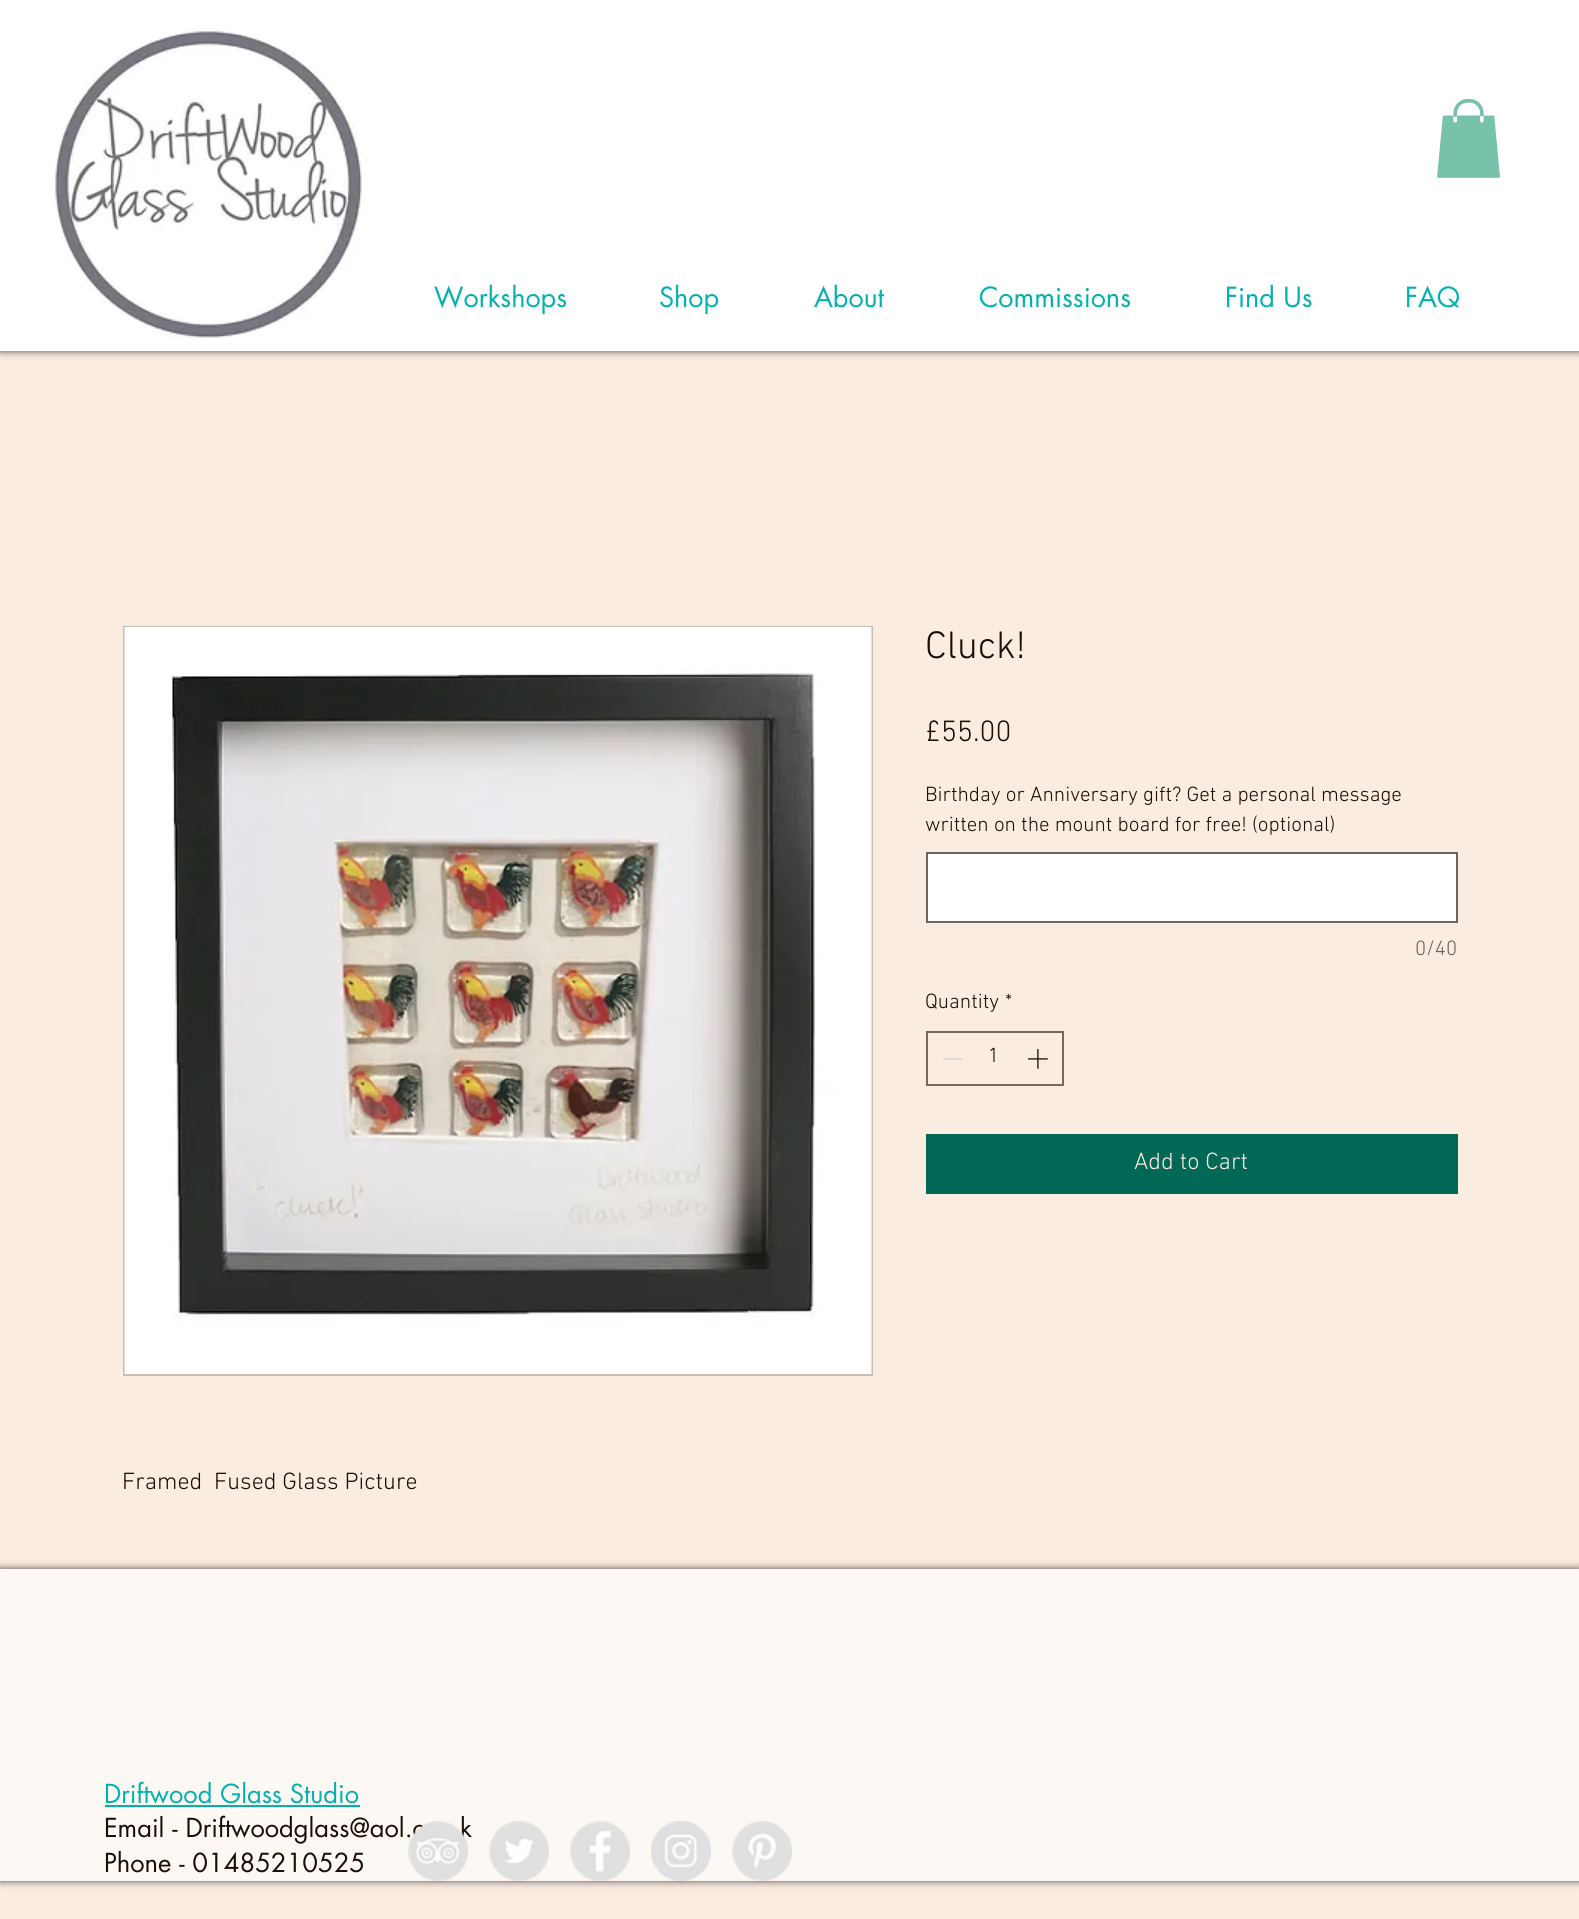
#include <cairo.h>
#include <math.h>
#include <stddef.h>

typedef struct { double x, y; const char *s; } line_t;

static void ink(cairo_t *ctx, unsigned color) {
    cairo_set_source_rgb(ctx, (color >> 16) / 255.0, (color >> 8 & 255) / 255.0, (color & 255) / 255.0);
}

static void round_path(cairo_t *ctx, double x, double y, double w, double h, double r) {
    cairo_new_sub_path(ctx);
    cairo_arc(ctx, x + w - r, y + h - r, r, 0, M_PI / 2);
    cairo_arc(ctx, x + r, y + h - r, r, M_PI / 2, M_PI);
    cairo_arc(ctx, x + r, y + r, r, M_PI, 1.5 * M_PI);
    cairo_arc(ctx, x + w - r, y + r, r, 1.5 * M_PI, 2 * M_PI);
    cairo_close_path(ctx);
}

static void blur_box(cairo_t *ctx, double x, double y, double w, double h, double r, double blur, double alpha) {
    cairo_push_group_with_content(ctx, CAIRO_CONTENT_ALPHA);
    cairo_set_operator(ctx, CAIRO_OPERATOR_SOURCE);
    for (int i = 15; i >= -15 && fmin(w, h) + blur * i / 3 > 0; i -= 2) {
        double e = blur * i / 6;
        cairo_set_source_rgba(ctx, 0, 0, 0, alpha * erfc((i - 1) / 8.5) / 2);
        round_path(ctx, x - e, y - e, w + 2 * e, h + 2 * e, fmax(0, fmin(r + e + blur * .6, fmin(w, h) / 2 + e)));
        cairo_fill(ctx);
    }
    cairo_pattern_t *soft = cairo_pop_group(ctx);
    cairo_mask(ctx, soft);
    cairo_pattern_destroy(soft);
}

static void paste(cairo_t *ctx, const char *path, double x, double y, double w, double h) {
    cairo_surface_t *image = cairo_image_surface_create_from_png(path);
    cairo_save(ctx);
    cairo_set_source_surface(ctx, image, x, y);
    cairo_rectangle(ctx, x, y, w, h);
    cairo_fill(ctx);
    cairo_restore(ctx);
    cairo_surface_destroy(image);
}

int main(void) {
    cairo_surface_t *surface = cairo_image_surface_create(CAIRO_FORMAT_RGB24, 1579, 1919);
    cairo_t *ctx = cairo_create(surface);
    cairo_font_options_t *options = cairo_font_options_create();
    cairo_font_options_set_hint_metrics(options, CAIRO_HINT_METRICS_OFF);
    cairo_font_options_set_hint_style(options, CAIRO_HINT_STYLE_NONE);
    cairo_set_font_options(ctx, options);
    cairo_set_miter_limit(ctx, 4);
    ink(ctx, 0xFAECE1);
    cairo_paint(ctx);
    ink(ctx, 0x000000);
    blur_box(ctx, 0, 0, 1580, 351, 0, 4, 0.7);
    ink(ctx, 0xFFFFFF);
    cairo_rectangle(ctx, 0, 0, 1579, 351);
    cairo_fill(ctx);
    paste(ctx, "media/1.png", 55, 29, 307, 310);
    paste(ctx, "media/2.png", 1437, 99, 63, 79);
    cairo_select_font_face(ctx, "futura", CAIRO_FONT_SLANT_NORMAL, CAIRO_FONT_WEIGHT_NORMAL);
    cairo_set_font_size(ctx, 27);
    ink(ctx, 0x01B1AF);
    {
        static const line_t items[] = {
            {434, 307, "Workshops"},
            {659, 307, "Shop"},
            {814, 307, "About"},
            {979, 307, "Commissions"},
            {1225, 307, "Find Us"},
            {1405, 307, "FAQ"},
        };
        for (size_t i = 0; i < sizeof items / sizeof *items; i++) {
            cairo_move_to(ctx, items[i].x, items[i].y);
            cairo_show_text(ctx, items[i].s);
        }
    }
    cairo_select_font_face(ctx, "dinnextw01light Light", CAIRO_FONT_SLANT_NORMAL, CAIRO_FONT_WEIGHT_NORMAL);
    cairo_set_font_size(ctx, 39);
    ink(ctx, 0x1D0E03);
    cairo_move_to(ctx, 925, 658);
    cairo_show_text(ctx, "Cluck!");
    cairo_set_font_size(ctx, 30);
    cairo_move_to(ctx, 925, 741);
    cairo_show_text(ctx, "£55.00");
    cairo_set_font_size(ctx, 21);
    cairo_move_to(ctx, 925, 801);
    cairo_show_text(ctx, "Birthday or Anniversary gift? Get a personal message");
    cairo_move_to(ctx, 925, 831);
    cairo_show_text(ctx, "written on the mount board for free! (optional)");
    ink(ctx, 0xFFFFFF);
    cairo_rectangle(ctx, 927, 853, 530, 69);
    cairo_fill_preserve(ctx);
    ink(ctx, 0x666666);
    cairo_stroke(ctx);
    ink(ctx, 0x645E5A);
    cairo_move_to(ctx, 1415, 955);
    cairo_show_text(ctx, "0/40");
    ink(ctx, 0x1D0E03);
    cairo_move_to(ctx, 925, 1008);
    cairo_show_text(ctx, "Quantity");
    cairo_move_to(ctx, 1005, 1008);
    cairo_show_text(ctx, "*");
    cairo_rectangle(ctx, 927, 1032, 136, 53);
    ink(ctx, 0x75675C);
    cairo_stroke(ctx);
    ink(ctx, 0xE1DAD4);
    cairo_rectangle(ctx, 943, 1058, 19, 2);
    cairo_fill(ctx);
    ink(ctx, 0x1D0E03);
    cairo_move_to(ctx, 988, 1062);
    cairo_show_text(ctx, "1");
    paste(ctx, "media/3.png", 1028, 1049, 20, 20);
    ink(ctx, 0x016855);
    cairo_rectangle(ctx, 926, 1134, 532, 60);
    cairo_fill(ctx);
    cairo_set_font_size(ctx, 24);
    ink(ctx, 0xFAECE1);
    cairo_move_to(ctx, 1134, 1169);
    cairo_show_text(ctx, "Add to Cart");
    cairo_rectangle(ctx, 124, 627, 748, 748);
    ink(ctx, 0xC8BDB4);
    cairo_stroke(ctx);
    paste(ctx, "media/4.png", 124, 627, 748, 747);
    ink(ctx, 0x1D0E03);
    cairo_move_to(ctx, 122, 1489);
    cairo_show_text(ctx, "Framed  Fused Glass Picture");
    ink(ctx, 0x000000);
    blur_box(ctx, 0, 1569, 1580, 312, 0, 4, 0.7);
    ink(ctx, 0xFCF8F3);
    cairo_rectangle(ctx, 0, 1569, 1579, 312);
    cairo_fill(ctx);
    cairo_select_font_face(ctx, "futura", CAIRO_FONT_SLANT_NORMAL, CAIRO_FONT_WEIGHT_NORMAL);
    cairo_set_font_size(ctx, 25.5);
    ink(ctx, 0x01B1AF);
    cairo_move_to(ctx, 104, 1803);
    cairo_show_text(ctx, "Driftwood Glass Studio");
    cairo_rectangle(ctx, 105, 1805, 255, 2);
    cairo_fill(ctx);
    ink(ctx, 0x1D0E03);
    {
        static const line_t items[] = {
            {104, 1837, "Email - Driftwoodglass@aol.c"},
            {460, 1837, "k"},
            {104, 1872, "Phone - 01485210525"},
        };
        for (size_t i = 0; i < sizeof items / sizeof *items; i++) {
            cairo_move_to(ctx, items[i].x, items[i].y);
            cairo_show_text(ctx, items[i].s);
        }
    }
    paste(ctx, "media/5.png", 408, 1821, 60, 60);
    paste(ctx, "media/6.png", 489, 1821, 60, 60);
    paste(ctx, "media/7.png", 570, 1821, 60, 60);
    paste(ctx, "media/8.png", 651, 1821, 60, 60);
    paste(ctx, "media/9.png", 732, 1821, 60, 60);
    cairo_surface_write_to_png(surface, "image.png");
    cairo_font_options_destroy(options);
    cairo_destroy(ctx);
    cairo_surface_destroy(surface);
    return 0;
}
